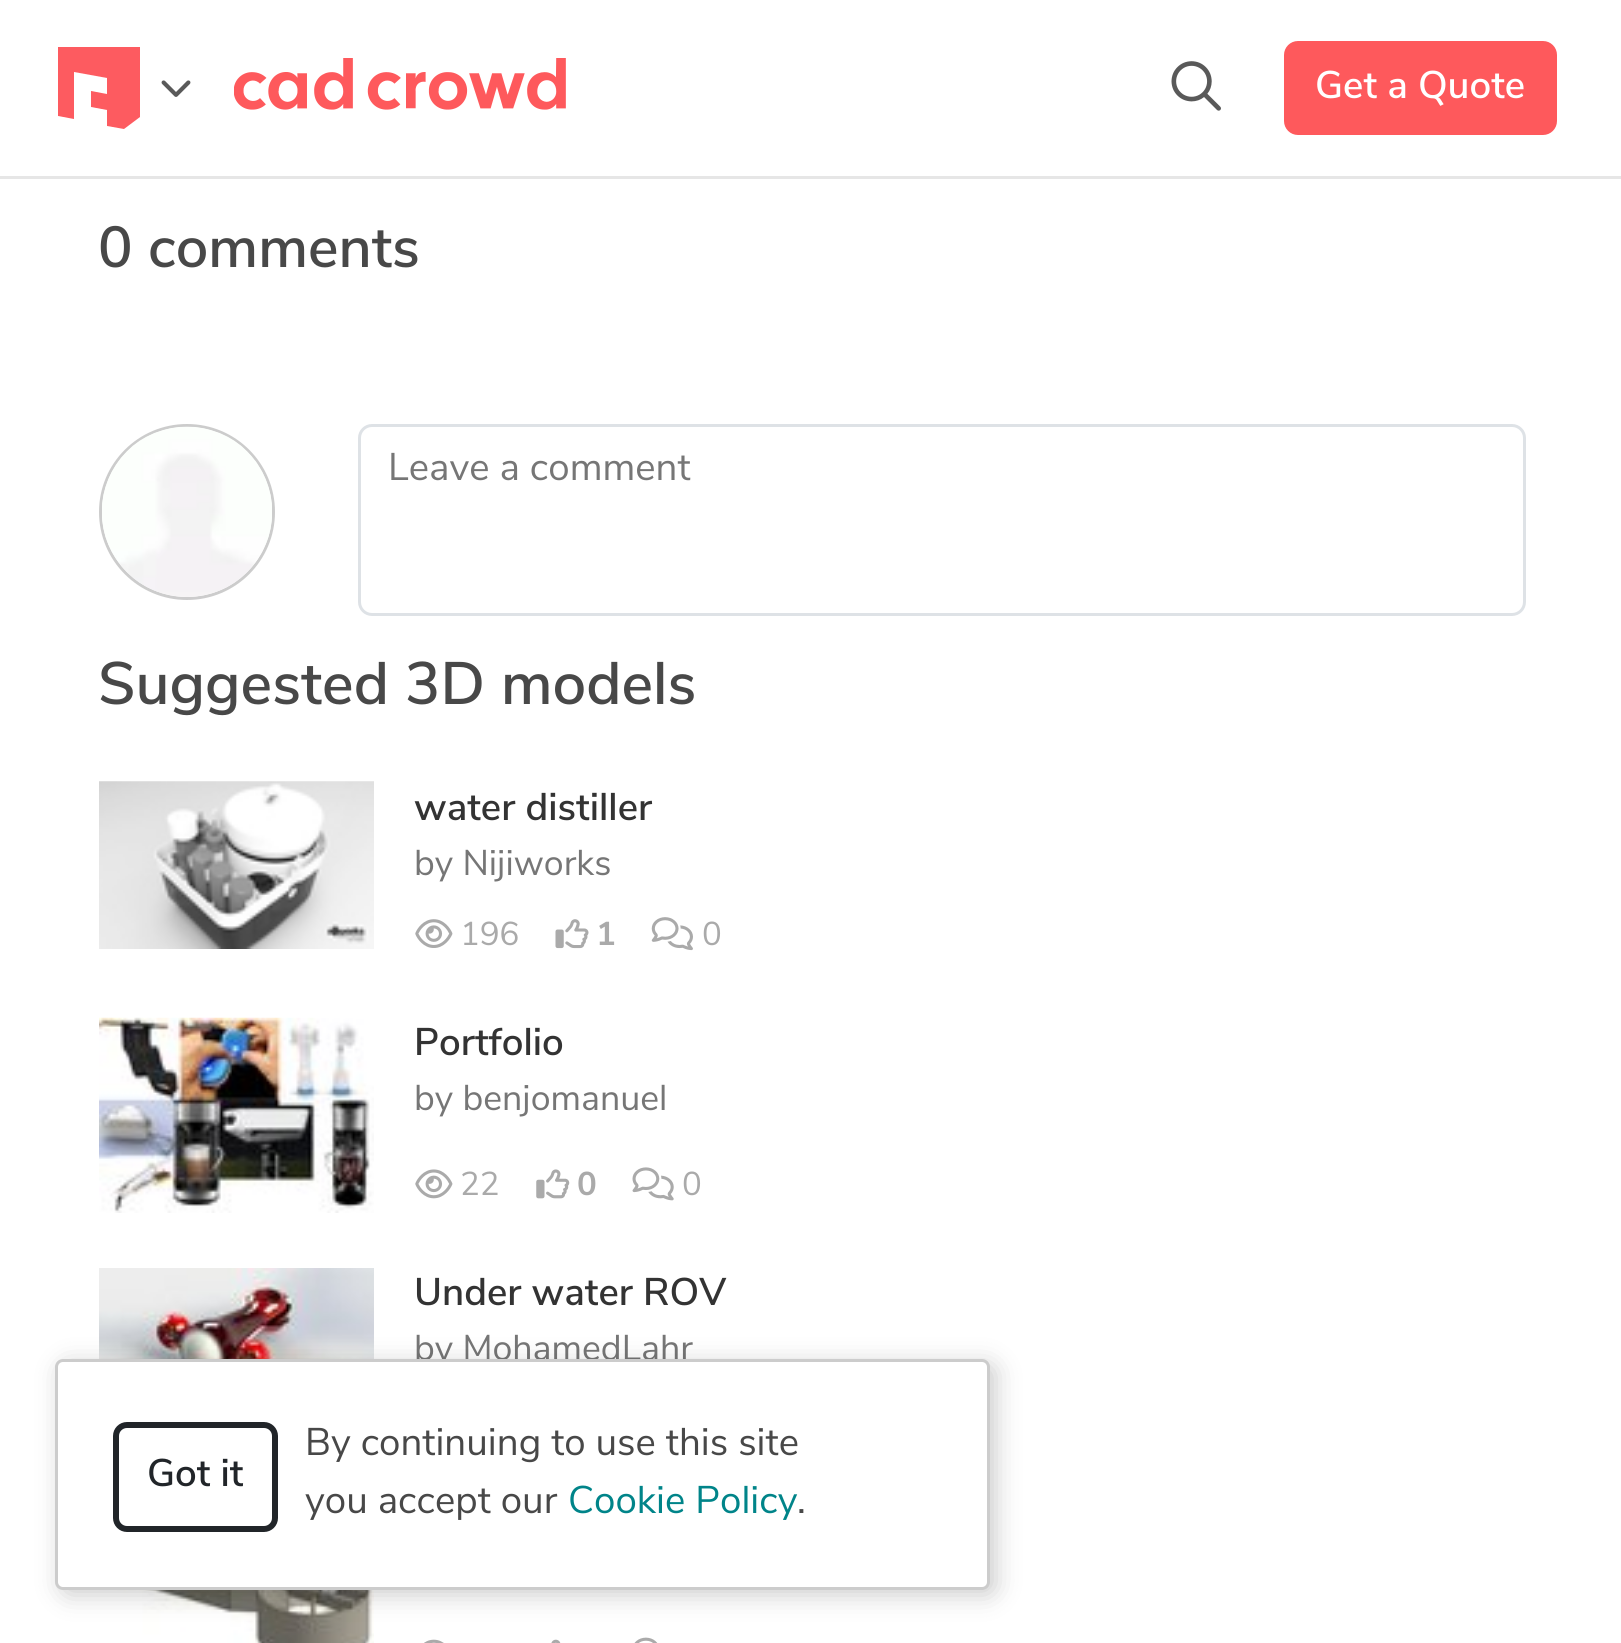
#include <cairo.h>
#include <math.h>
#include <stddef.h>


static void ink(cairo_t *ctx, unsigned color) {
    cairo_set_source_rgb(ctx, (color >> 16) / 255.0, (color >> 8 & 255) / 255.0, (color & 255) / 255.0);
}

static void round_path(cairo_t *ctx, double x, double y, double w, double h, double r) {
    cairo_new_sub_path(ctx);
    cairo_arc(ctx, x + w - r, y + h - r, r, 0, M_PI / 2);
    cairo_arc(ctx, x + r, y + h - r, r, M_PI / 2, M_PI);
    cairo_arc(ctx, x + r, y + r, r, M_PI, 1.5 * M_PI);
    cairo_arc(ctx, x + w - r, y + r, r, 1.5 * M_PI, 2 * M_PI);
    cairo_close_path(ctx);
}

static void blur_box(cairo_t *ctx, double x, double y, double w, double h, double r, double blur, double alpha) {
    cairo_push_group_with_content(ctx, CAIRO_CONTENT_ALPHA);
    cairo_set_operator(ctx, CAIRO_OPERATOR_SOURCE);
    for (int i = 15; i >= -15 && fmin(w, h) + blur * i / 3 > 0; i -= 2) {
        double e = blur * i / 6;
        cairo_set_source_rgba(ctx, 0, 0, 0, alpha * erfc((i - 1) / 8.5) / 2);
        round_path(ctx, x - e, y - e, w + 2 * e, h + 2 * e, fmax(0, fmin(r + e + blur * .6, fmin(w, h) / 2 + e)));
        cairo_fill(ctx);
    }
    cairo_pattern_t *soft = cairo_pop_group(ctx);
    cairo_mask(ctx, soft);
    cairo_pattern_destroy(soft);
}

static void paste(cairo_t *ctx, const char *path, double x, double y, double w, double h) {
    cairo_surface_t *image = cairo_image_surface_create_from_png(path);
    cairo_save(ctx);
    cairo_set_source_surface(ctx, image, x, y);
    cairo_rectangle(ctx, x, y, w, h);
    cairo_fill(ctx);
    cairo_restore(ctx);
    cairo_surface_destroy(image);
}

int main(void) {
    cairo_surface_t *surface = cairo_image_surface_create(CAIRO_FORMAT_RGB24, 1621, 1643);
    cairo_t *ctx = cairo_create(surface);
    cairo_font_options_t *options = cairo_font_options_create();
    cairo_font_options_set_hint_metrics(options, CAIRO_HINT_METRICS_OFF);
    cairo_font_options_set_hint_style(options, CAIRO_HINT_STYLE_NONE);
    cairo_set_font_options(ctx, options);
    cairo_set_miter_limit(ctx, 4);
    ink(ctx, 0xFFFFFF);
    cairo_paint(ctx);
    cairo_rectangle(ctx, -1.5, -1.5, 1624, 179);
    ink(ctx, 0xE6E6E6);
    cairo_set_line_width(ctx, 3);
    cairo_stroke(ctx);
    ink(ctx, 0xFD5B60);
    cairo_new_path(ctx);
    cairo_move_to(ctx, 58, 47);
    cairo_line_to(ctx, 58, 116);
    cairo_line_to(ctx, 74, 119);
    cairo_line_to(ctx, 74, 72);
    cairo_line_to(ctx, 107, 78);
    cairo_line_to(ctx, 107, 94);
    cairo_line_to(ctx, 91, 91);
    cairo_line_to(ctx, 91, 107);
    cairo_line_to(ctx, 107, 110);
    cairo_line_to(ctx, 107, 126);
    cairo_line_to(ctx, 124, 129);
    cairo_line_to(ctx, 140, 117);
    cairo_line_to(ctx, 140, 47);
    cairo_close_path(ctx);
    cairo_fill(ctx);
    paste(ctx, "media/1.png", 161, 80, 30, 17);
    paste(ctx, "media/2.png", 234, 58, 332, 52);
    paste(ctx, "media/3.png", 1171, 61, 50, 50);
    ink(ctx, 0xFE595C);
    round_path(ctx, 1285.5, 42.5, 270, 91, 12.5);
    cairo_fill_preserve(ctx);
    cairo_stroke(ctx);
    cairo_select_font_face(ctx, "Nunito Sans SemiBold", CAIRO_FONT_SLANT_NORMAL, CAIRO_FONT_WEIGHT_NORMAL);
    cairo_set_font_size(ctx, 38.5);
    ink(ctx, 0xFFFFFF);
    cairo_move_to(ctx, 1315, 98);
    cairo_show_text(ctx, "Get a Quote");
    cairo_set_font_size(ctx, 57.75);
    ink(ctx, 0x484848);
    cairo_move_to(ctx, 98, 267);
    cairo_show_text(ctx, "0 comments");
    cairo_new_path(ctx);
    cairo_arc(ctx, 187, 512, 86.5, 0, 2 * M_PI);
    ink(ctx, 0xCCCCCC);
    cairo_stroke(ctx);
    paste(ctx, "media/4.png", 102, 426, 170, 171);
    round_path(ctx, 359.5, 425.5, 1165, 189, 12.5);
    ink(ctx, 0xDEE2E6);
    cairo_stroke(ctx);
    cairo_select_font_face(ctx, "Nunito Sans", CAIRO_FONT_SLANT_NORMAL, CAIRO_FONT_WEIGHT_NORMAL);
    cairo_set_font_size(ctx, 38.5);
    ink(ctx, 0x767676);
    cairo_move_to(ctx, 388, 480);
    cairo_show_text(ctx, "Leave a comment");
    cairo_select_font_face(ctx, "Nunito Sans SemiBold", CAIRO_FONT_SLANT_NORMAL, CAIRO_FONT_WEIGHT_NORMAL);
    cairo_set_font_size(ctx, 59.75);
    ink(ctx, 0x484848);
    cairo_move_to(ctx, 98, 704);
    cairo_show_text(ctx, "Suggested 3D models");
    paste(ctx, "media/5.png", 99, 781, 275, 168);
    cairo_set_font_size(ctx, 38.5);
    ink(ctx, 0x333333);
    cairo_move_to(ctx, 414, 820);
    cairo_show_text(ctx, "water distiller");
    cairo_select_font_face(ctx, "Nunito Sans", CAIRO_FONT_SLANT_NORMAL, CAIRO_FONT_WEIGHT_NORMAL);
    cairo_set_font_size(ctx, 35.75);
    ink(ctx, 0x767676);
    cairo_move_to(ctx, 414, 875);
    cairo_show_text(ctx, "by Nijiworks");
    paste(ctx, "media/6.png", 415, 919, 38, 29);
    cairo_set_font_size(ctx, 33);
    ink(ctx, 0xAAAAAA);
    cairo_move_to(ctx, 460, 945);
    cairo_show_text(ctx, "196");
    paste(ctx, "media/7.png", 555, 919, 34, 30);
    cairo_select_font_face(ctx, "Nunito Sans", CAIRO_FONT_SLANT_NORMAL, CAIRO_FONT_WEIGHT_BOLD);
    cairo_move_to(ctx, 596, 945);
    cairo_show_text(ctx, "1");
    paste(ctx, "media/8.png", 651, 917, 42, 34);
    cairo_select_font_face(ctx, "Nunito Sans", CAIRO_FONT_SLANT_NORMAL, CAIRO_FONT_WEIGHT_NORMAL);
    cairo_move_to(ctx, 702, 945);
    cairo_show_text(ctx, "0");
    paste(ctx, "media/9.png", 99, 1017, 275, 196);
    cairo_select_font_face(ctx, "Nunito Sans SemiBold", CAIRO_FONT_SLANT_NORMAL, CAIRO_FONT_WEIGHT_NORMAL);
    cairo_set_font_size(ctx, 38.5);
    ink(ctx, 0x333333);
    cairo_move_to(ctx, 414, 1055);
    cairo_show_text(ctx, "Portfolio");
    cairo_select_font_face(ctx, "Nunito Sans", CAIRO_FONT_SLANT_NORMAL, CAIRO_FONT_WEIGHT_NORMAL);
    cairo_set_font_size(ctx, 35.75);
    ink(ctx, 0x767676);
    cairo_move_to(ctx, 414, 1110);
    cairo_show_text(ctx, "by benjomanuel");
    paste(ctx, "media/10.png", 415, 1169, 38, 30);
    cairo_set_font_size(ctx, 33);
    ink(ctx, 0xAAAAAA);
    cairo_move_to(ctx, 460, 1195);
    cairo_show_text(ctx, "22");
    paste(ctx, "media/11.png", 536, 1169, 34, 30);
    cairo_select_font_face(ctx, "Nunito Sans", CAIRO_FONT_SLANT_NORMAL, CAIRO_FONT_WEIGHT_BOLD);
    cairo_move_to(ctx, 577, 1195);
    cairo_show_text(ctx, "0");
    paste(ctx, "media/12.png", 632, 1167, 42, 34);
    cairo_select_font_face(ctx, "Nunito Sans", CAIRO_FONT_SLANT_NORMAL, CAIRO_FONT_WEIGHT_NORMAL);
    cairo_move_to(ctx, 682, 1195);
    cairo_show_text(ctx, "0");
    paste(ctx, "media/13.png", 99, 1268, 275, 91);
    cairo_select_font_face(ctx, "Nunito Sans SemiBold", CAIRO_FONT_SLANT_NORMAL, CAIRO_FONT_WEIGHT_NORMAL);
    cairo_set_font_size(ctx, 38.5);
    ink(ctx, 0x333333);
    cairo_move_to(ctx, 414, 1305);
    cairo_show_text(ctx, "Under water ROV");
    cairo_select_font_face(ctx, "Nunito Sans", CAIRO_FONT_SLANT_NORMAL, CAIRO_FONT_WEIGHT_NORMAL);
    cairo_set_font_size(ctx, 35.75);
    ink(ctx, 0x767676);
    cairo_move_to(ctx, 414, 1360);
    cairo_show_text(ctx, "by MohamedLahr");
    paste(ctx, "media/14.png", 99, 1590, 275, 53);
    paste(ctx, "media/15.png", 424, 1639, 20, 4);
    paste(ctx, "media/16.png", 551, 1639, 10, 4);
    paste(ctx, "media/17.png", 634, 1637, 24, 6);
    ink(ctx, 0x000000);
    blur_box(ctx, 61, 1364, 935, 231, 8, 12.5, 0.2);
    ink(ctx, 0xFFFFFF);
    round_path(ctx, 56.5, 1360.5, 932, 228, 6.5);
    cairo_fill_preserve(ctx);
    ink(ctx, 0xCCCCCC);
    cairo_stroke(ctx);
    round_path(ctx, 116, 1425, 159, 104, 11);
    ink(ctx, 0x212529);
    cairo_set_line_width(ctx, 6);
    cairo_stroke(ctx);
    cairo_select_font_face(ctx, "Nunito Sans SemiBold", CAIRO_FONT_SLANT_NORMAL, CAIRO_FONT_WEIGHT_NORMAL);
    cairo_set_font_size(ctx, 38.5);
    cairo_move_to(ctx, 147, 1486);
    cairo_show_text(ctx, "Got it");
    cairo_select_font_face(ctx, "Nunito Sans", CAIRO_FONT_SLANT_NORMAL, CAIRO_FONT_WEIGHT_NORMAL);
    ink(ctx, 0x484848);
    cairo_move_to(ctx, 305, 1455);
    cairo_show_text(ctx, "By continuing to use this site");
    cairo_move_to(ctx, 305, 1513);
    cairo_show_text(ctx, "you accept our");
    ink(ctx, 0x008489);
    cairo_move_to(ctx, 568, 1513);
    cairo_show_text(ctx, "Cookie Policy");
    ink(ctx, 0x484848);
    cairo_move_to(ctx, 797, 1513);
    cairo_show_text(ctx, ".");
    cairo_surface_write_to_png(surface, "image.png");
    cairo_font_options_destroy(options);
    cairo_destroy(ctx);
    cairo_surface_destroy(surface);
    return 0;
}
